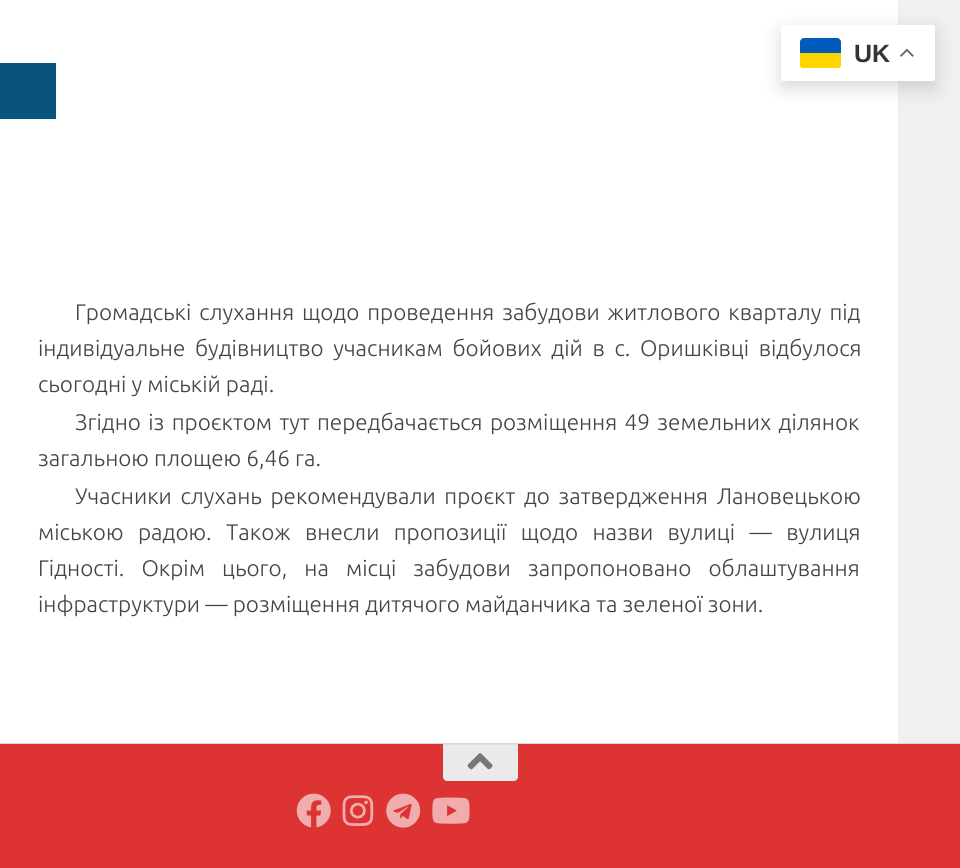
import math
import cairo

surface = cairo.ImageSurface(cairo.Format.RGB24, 960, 868)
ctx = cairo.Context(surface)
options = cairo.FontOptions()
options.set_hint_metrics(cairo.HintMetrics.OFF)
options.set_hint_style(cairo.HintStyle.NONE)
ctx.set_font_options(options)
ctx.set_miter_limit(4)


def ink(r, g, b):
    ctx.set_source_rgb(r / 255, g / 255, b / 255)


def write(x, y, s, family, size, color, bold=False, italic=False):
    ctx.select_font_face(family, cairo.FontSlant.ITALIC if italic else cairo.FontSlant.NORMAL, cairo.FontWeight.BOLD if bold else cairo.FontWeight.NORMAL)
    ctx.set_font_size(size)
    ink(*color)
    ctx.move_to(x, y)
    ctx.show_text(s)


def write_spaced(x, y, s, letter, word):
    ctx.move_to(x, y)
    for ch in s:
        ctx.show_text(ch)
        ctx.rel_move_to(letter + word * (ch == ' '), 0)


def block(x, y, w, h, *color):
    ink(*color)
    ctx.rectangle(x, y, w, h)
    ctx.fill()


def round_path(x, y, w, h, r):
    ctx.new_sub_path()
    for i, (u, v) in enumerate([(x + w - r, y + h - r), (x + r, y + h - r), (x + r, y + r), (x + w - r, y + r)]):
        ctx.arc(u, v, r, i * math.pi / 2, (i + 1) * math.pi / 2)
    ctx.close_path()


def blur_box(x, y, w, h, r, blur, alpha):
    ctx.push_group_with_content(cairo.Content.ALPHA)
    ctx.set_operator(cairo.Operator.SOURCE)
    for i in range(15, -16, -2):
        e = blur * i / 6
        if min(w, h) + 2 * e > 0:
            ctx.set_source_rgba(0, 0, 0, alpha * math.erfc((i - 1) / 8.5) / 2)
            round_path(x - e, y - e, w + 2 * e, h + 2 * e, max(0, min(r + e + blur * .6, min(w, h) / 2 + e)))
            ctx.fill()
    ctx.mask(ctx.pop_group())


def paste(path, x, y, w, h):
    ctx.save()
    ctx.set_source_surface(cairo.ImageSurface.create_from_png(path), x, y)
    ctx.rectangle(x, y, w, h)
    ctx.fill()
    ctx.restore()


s1 = dict(family="Liberation Sans", size=25, color=(51, 51, 51), bold=True)
s2 = dict(family="Ubuntu Light", size=22.5, color=(68, 68, 68))

ink(234, 234, 234)
ctx.paint()
ink(0, 0, 0)
blur_box(0, -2, 960, 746, 0, 0.5, 0.1)
block(0, 0, 898, 743, 255, 255, 255)
block(898, 0, 62, 743, 240, 240, 240)
ink(0, 0, 0)
blur_box(781, 31, 154, 57, 2.5, 9.5, 0.15)
ink(255, 255, 255)
round_path(781, 25, 154, 56, 2.5)
ctx.fill()
ctx.save()
round_path(800, 38, 41, 31, 4)
ctx.clip()
ink(255, 213, 0)
ctx.new_path()
ctx.move_to(804, 38)
ctx.line_to(837, 38)
ctx.curve_to(839, 38, 841, 40, 841, 42)
ctx.line_to(841, 68)
ctx.line_to(800, 68)
ctx.line_to(800, 42)
ctx.curve_to(800, 40, 802, 38, 804, 38)
ctx.close_path()
ctx.fill()
ctx.restore()
ink(0, 91, 187)
ctx.new_path()
ctx.move_to(804, 38)
ctx.line_to(837, 38)
ctx.curve_to(839, 38, 841, 40, 841, 42)
ctx.line_to(841, 53)
ctx.line_to(800, 53)
ctx.line_to(800, 42)
ctx.curve_to(800, 40, 802, 38, 804, 38)
ctx.close_path()
ctx.fill()
write(854, 62, "UK", **s1)
paste("pic1.png", 900, 48, 14, 9)
block(0, 63, 56, 56, 9, 84, 124)
ctx.select_font_face("Ubuntu Light")
ctx.set_font_size(22.5)
ink(68, 68, 68)
write_spaced(75, 320, "Громадські слухання щодо проведення забудови житлового кварталу під", 0, 2.75)
write_spaced(38, 356, "індивідуальне будівництво учасникам бойових дій в с. Оришківці відбулося", 0, 4.5)
write(38, 392, "сьогодні у міській раді.", **s2)
write_spaced(75, 430, "Згідно із проєктом тут передбачається розміщення 49 земельних ділянок", 0, 2.25)
write(38, 466, "загальною площею 6,46 га.", **s2)
write_spaced(75, 504, "Учасники слухань рекомендували проєкт до затвердження Лановецькою", 0, 3.5)
write_spaced(38, 540, "міською радою. Також внесли пропозиції щодо назви вулиці — вулиця", 0, 9.25)
write_spaced(38, 576, "Гідності. Окрім цього, на місці забудови запропоновано облаштування", 0, 12)
write(38, 612, "інфраструктури — розміщення дитячого майданчика та зеленої зони.", **s2)
block(0, 744, 960, 124, 221, 51, 51)
ink(234, 234, 234)
ctx.new_path()
ctx.move_to(443, 744)
ctx.line_to(518, 744)
ctx.line_to(518, 777)
ctx.curve_to(518, 779, 516, 781, 514, 781)
ctx.line_to(447, 781)
ctx.curve_to(445, 781, 443, 779, 443, 777)
ctx.close_path()
ctx.fill()
block(443, 744, 75, 1, 222, 222, 222)
paste("pic2.png", 467, 753, 26, 17)
paste("pic3.png", 296, 793, 35, 35)
paste("pic4.png", 342, 795, 32, 31)
paste("pic5.png", 386, 793, 35, 35)
paste("pic6.png", 432, 797, 38, 27)
surface.write_to_png("screenshot.png")
